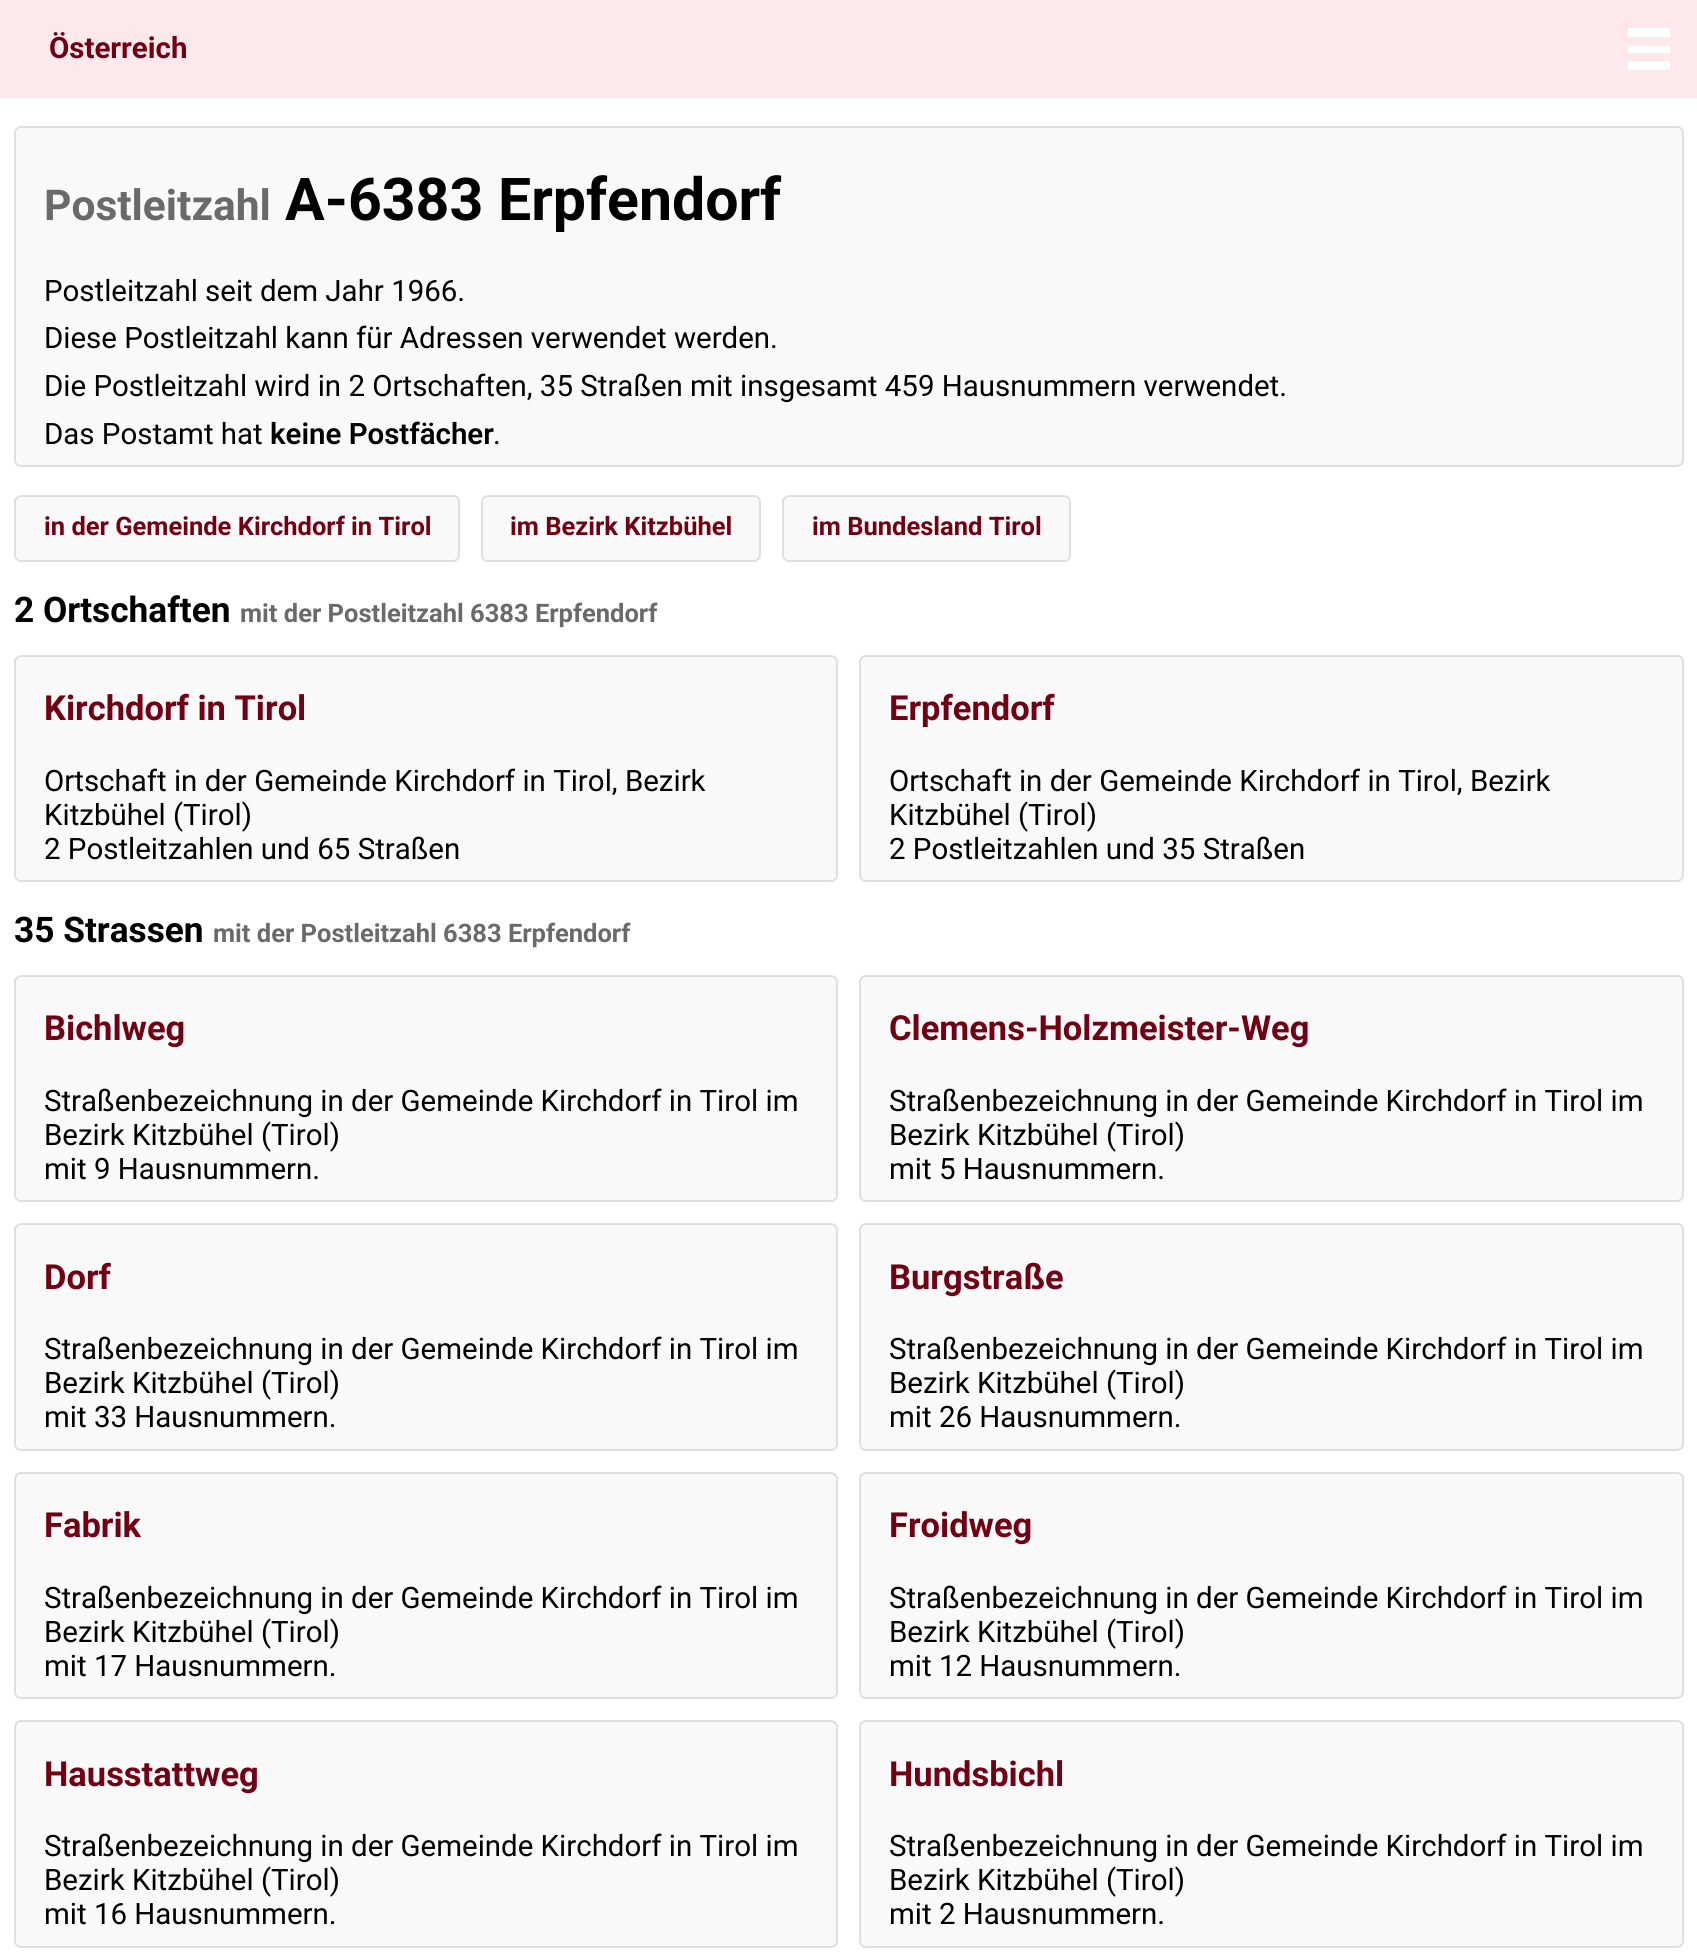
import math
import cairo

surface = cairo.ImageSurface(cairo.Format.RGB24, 1697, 1953)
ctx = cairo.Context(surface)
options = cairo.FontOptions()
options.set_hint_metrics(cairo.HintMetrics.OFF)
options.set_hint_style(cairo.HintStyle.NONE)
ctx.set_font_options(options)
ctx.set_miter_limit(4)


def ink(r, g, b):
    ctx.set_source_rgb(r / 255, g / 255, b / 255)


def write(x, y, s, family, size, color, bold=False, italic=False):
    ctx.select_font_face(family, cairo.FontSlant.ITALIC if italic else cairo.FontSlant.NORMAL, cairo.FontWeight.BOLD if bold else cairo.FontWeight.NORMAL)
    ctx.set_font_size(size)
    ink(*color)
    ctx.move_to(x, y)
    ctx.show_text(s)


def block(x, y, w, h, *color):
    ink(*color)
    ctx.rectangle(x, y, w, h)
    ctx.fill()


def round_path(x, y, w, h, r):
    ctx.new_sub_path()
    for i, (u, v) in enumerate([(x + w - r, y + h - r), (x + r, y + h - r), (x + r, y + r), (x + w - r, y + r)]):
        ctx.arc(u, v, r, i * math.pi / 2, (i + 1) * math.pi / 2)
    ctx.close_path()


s1 = dict(family="Roboto", size=29.45, color=(113, 0, 20), bold=True)
s2 = dict(family="Roboto", size=42.5, color=(106, 106, 106), bold=True)
s3 = dict(family="Roboto", size=59, color=(0, 0, 0), bold=True)
s4 = dict(family="Roboto", size=29.45, color=(0, 0, 0))
s5 = dict(family="Roboto SemiBold", size=29.45, color=(0, 0, 0))
s6 = dict(family="Roboto", size=25.5, color=(113, 0, 20), bold=True)
s7 = dict(family="Roboto", size=35.25, color=(0, 0, 0), bold=True)
s8 = dict(family="Roboto", size=25.5, color=(106, 106, 106), bold=True)
s9 = dict(family="Roboto", size=34.5, color=(113, 0, 20), bold=True)

ink(255, 255, 255)
ctx.paint()
block(0, 0, 1697, 98, 253, 233, 236)
write(49, 58, "Österreich", **s1)
block(1628, 28, 42, 9, 255, 255, 255)
block(1628, 46, 42, 7, 255, 255, 255)
block(1628, 61, 42, 9, 255, 255, 255)
ink(249, 249, 249)
round_path(15, 127, 1668, 339, 6)
ctx.fill_preserve()
ink(223, 223, 223)
ctx.stroke()
write(44, 220, "Postleitzahl", **s2)
write(285, 220, "A-6383 Erpfendorf", **s3)
write(44, 301, "Postleitzahl seit dem Jahr 1966.", **s4)
write(44, 348, "Diese Postleitzahl kann für Adressen verwendet werden.", **s4)
write(44, 396, "Die Postleitzahl wird in 2 Ortschaften, 35 Straßen mit insgesamt 459 Hausnummern verwendet.", **s4)
write(44, 444, "Das Postamt hat", **s4)
write(270, 444, "keine Postfächer", **s5)
write(493, 444, ".", **s4)
ink(249, 249, 249)
round_path(15, 496, 444, 65, 6)
ctx.fill_preserve()
ink(223, 223, 223)
ctx.stroke()
write(44, 535, "in der Gemeinde Kirchdorf in Tirol", **s6)
ink(249, 249, 249)
round_path(482, 496, 278, 65, 6)
ctx.fill_preserve()
ink(223, 223, 223)
ctx.stroke()
write(510, 535, "im Bezirk Kitzbühel", **s6)
ink(249, 249, 249)
round_path(783, 496, 287, 65, 6)
ctx.fill_preserve()
ink(223, 223, 223)
ctx.stroke()
write(812, 535, "im Bundesland Tirol", **s6)
write(14, 622, "2 Ortschaften", **s7)
write(240, 622, "mit der Postleitzahl 6383 Erpfendorf", **s8)
ink(249, 249, 249)
round_path(15, 656, 822, 225, 6)
ctx.fill_preserve()
ink(223, 223, 223)
ctx.stroke()
write(44, 720, "Kirchdorf in Tirol", **s9)
write(44, 791, "Ortschaft in der Gemeinde Kirchdorf in Tirol, Bezirk", **s4)
write(44, 825, "Kitzbühel (Tirol)", **s4)
write(44, 859, "2 Postleitzahlen und 65 Straßen", **s4)
ink(249, 249, 249)
round_path(860, 656, 823, 225, 6)
ctx.fill_preserve()
ink(223, 223, 223)
ctx.stroke()
write(889, 720, "Erpfendorf", **s9)
write(889, 791, "Ortschaft in der Gemeinde Kirchdorf in Tirol, Bezirk", **s4)
write(889, 825, "Kitzbühel (Tirol)", **s4)
write(889, 859, "2 Postleitzahlen und 35 Straßen", **s4)
write(14, 942, "35 Strassen", **s7)
write(213, 942, "mit der Postleitzahl 6383 Erpfendorf", **s8)
ink(249, 249, 249)
round_path(15, 976, 822, 225, 6)
ctx.fill_preserve()
ink(223, 223, 223)
ctx.stroke()
write(44, 1040, "Bichlweg", **s9)
write(44, 1111, "Straßenbezeichnung in der Gemeinde Kirchdorf in Tirol im", **s4)
write(44, 1145, "Bezirk Kitzbühel (Tirol)", **s4)
write(44, 1179, "mit 9 Hausnummern.", **s4)
ink(249, 249, 249)
round_path(860, 976, 823, 225, 6)
ctx.fill_preserve()
ink(223, 223, 223)
ctx.stroke()
write(889, 1040, "Clemens-Holzmeister-Weg", **s9)
write(889, 1111, "Straßenbezeichnung in der Gemeinde Kirchdorf in Tirol im", **s4)
write(889, 1145, "Bezirk Kitzbühel (Tirol)", **s4)
write(889, 1179, "mit 5 Hausnummern.", **s4)
ink(249, 249, 249)
round_path(15, 1224, 822, 226, 6)
ctx.fill_preserve()
ink(223, 223, 223)
ctx.stroke()
write(44, 1289, "Dorf", **s9)
write(44, 1359, "Straßenbezeichnung in der Gemeinde Kirchdorf in Tirol im", **s4)
write(44, 1393, "Bezirk Kitzbühel (Tirol)", **s4)
write(44, 1427, "mit 33 Hausnummern.", **s4)
ink(249, 249, 249)
round_path(860, 1224, 823, 226, 6)
ctx.fill_preserve()
ink(223, 223, 223)
ctx.stroke()
write(889, 1289, "Burgstraße", **s9)
write(889, 1359, "Straßenbezeichnung in der Gemeinde Kirchdorf in Tirol im", **s4)
write(889, 1393, "Bezirk Kitzbühel (Tirol)", **s4)
write(889, 1427, "mit 26 Hausnummern.", **s4)
ink(249, 249, 249)
round_path(15, 1473, 822, 225, 6)
ctx.fill_preserve()
ink(223, 223, 223)
ctx.stroke()
write(44, 1537, "Fabrik", **s9)
write(44, 1608, "Straßenbezeichnung in der Gemeinde Kirchdorf in Tirol im", **s4)
write(44, 1642, "Bezirk Kitzbühel (Tirol)", **s4)
write(44, 1676, "mit 17 Hausnummern.", **s4)
ink(249, 249, 249)
round_path(860, 1473, 823, 225, 6)
ctx.fill_preserve()
ink(223, 223, 223)
ctx.stroke()
write(889, 1537, "Froidweg", **s9)
write(889, 1608, "Straßenbezeichnung in der Gemeinde Kirchdorf in Tirol im", **s4)
write(889, 1642, "Bezirk Kitzbühel (Tirol)", **s4)
write(889, 1676, "mit 12 Hausnummern.", **s4)
ink(249, 249, 249)
round_path(15, 1721, 822, 226, 6)
ctx.fill_preserve()
ink(223, 223, 223)
ctx.stroke()
write(44, 1786, "Hausstattweg", **s9)
write(44, 1856, "Straßenbezeichnung in der Gemeinde Kirchdorf in Tirol im", **s4)
write(44, 1890, "Bezirk Kitzbühel (Tirol)", **s4)
write(44, 1924, "mit 16 Hausnummern.", **s4)
ink(249, 249, 249)
round_path(860, 1721, 823, 226, 6)
ctx.fill_preserve()
ink(223, 223, 223)
ctx.stroke()
write(889, 1786, "Hundsbichl", **s9)
write(889, 1856, "Straßenbezeichnung in der Gemeinde Kirchdorf in Tirol im", **s4)
write(889, 1890, "Bezirk Kitzbühel (Tirol)", **s4)
write(889, 1924, "mit 2 Hausnummern.", **s4)
surface.write_to_png("screenshot.png")
